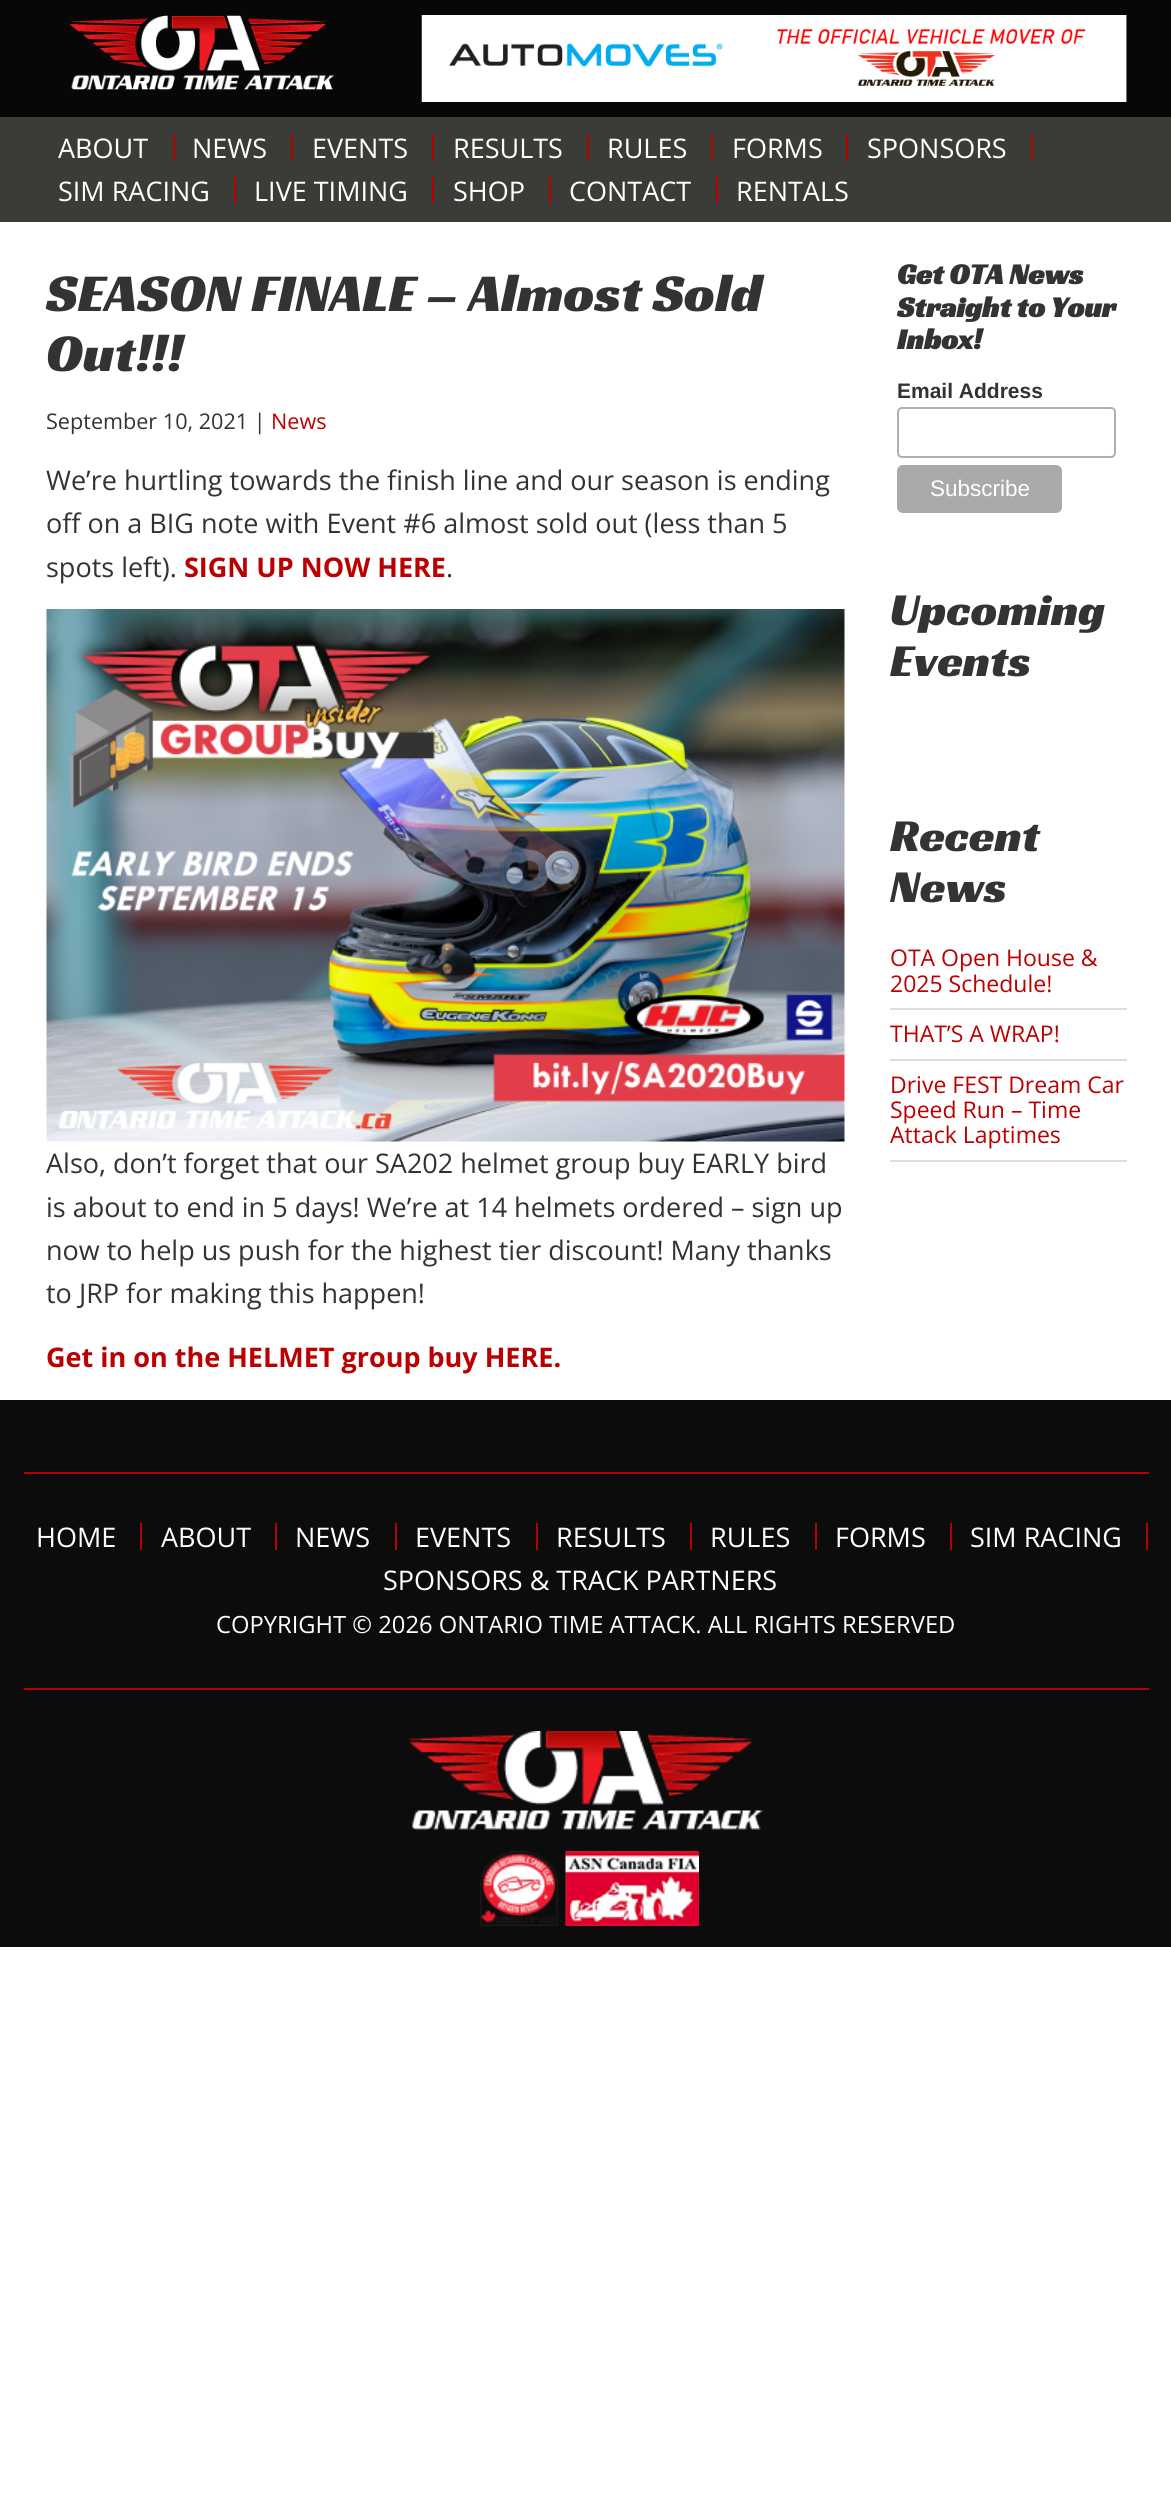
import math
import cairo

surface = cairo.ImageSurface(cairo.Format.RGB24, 1171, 2519)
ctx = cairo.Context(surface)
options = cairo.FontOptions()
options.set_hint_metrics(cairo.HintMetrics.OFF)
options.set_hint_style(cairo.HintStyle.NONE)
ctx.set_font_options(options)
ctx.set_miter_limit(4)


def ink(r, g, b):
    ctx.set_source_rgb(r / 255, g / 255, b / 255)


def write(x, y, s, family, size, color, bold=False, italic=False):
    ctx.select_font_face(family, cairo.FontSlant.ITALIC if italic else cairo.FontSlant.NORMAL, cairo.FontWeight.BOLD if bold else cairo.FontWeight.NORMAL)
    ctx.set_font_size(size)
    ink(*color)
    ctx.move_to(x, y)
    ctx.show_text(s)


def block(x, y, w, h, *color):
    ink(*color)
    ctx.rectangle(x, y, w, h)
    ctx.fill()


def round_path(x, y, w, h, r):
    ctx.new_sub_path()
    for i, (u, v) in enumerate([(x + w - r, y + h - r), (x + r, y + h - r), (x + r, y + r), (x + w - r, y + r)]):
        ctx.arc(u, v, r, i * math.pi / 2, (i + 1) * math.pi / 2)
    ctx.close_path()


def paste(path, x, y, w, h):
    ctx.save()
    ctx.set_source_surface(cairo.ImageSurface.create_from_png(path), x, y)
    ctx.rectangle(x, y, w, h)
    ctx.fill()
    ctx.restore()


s1 = dict(family="Open Sans", size=27, color=(255, 255, 255))
s2 = dict(family="Racing Sans One", size=54, color=(51, 51, 51))
s3 = dict(family="Open Sans", size=21.6, color=(51, 51, 51))
s4 = dict(family="Open Sans", size=21.6, color=(186, 0, 0))
s5 = dict(family="Open Sans", size=27, color=(51, 51, 51))
s6 = dict(family="Open Sans", size=27, color=(186, 0, 0), bold=True)
s7 = dict(family="Racing Sans One", size=29.5, color=(51, 51, 51), bold=True)
s8 = dict(family="Liberation Sans", size=21, color=(51, 51, 51), bold=True)
s9 = dict(family="Liberation Sans", size=22.5, color=(255, 255, 255))
s10 = dict(family="Racing Sans One", size=46.5, color=(51, 51, 51))
s11 = dict(family="Open Sans", size=23, color=(186, 0, 0))
s12 = dict(family="Open Sans", size=23.75, color=(255, 255, 255))

ink(255, 255, 255)
ctx.paint()
block(0, 0, 1171, 117, 7, 7, 7)
paste("pic1.png", 69, 15, 266, 75)
paste("pic2.png", 421, 15, 705, 87)
block(1126, 15, 1, 87, 116, 116, 116)
block(0, 117, 1171, 105, 59, 59, 56)
block(173, 134, 2, 27, 186, 0, 0)
write(58, 158, "ABOUT", **s1)
block(291, 134, 2, 27, 186, 0, 0)
write(192, 158, "NEWS", **s1)
block(432, 134, 2, 27, 186, 0, 0)
write(312, 158, "EVENTS", **s1)
block(587, 134, 2, 27, 186, 0, 0)
write(453, 158, "RESULTS", **s1)
block(711, 134, 2, 27, 186, 0, 0)
write(607, 158, "RULES", **s1)
block(846, 134, 2, 27, 186, 0, 0)
write(732, 158, "FORMS", **s1)
block(1031, 134, 2, 27, 186, 0, 0)
write(867, 158, "SPONSORS", **s1)
block(234, 177, 2, 27, 186, 0, 0)
write(58, 201, "SIM RACING", **s1)
block(432, 177, 2, 27, 186, 0, 0)
write(254, 201, "LIVE TIMING", **s1)
block(549, 177, 2, 27, 186, 0, 0)
write(453, 201, "SHOP", **s1)
block(716, 177, 2, 27, 186, 0, 0)
write(569, 201, "CONTACT", **s1)
write(736, 201, "RENTALS", **s1)
write(46, 311, "SEASON FINALE – Almost Sold", **s2)
write(46, 371, "Out!!!", **s2)
write(46, 429, "September 10, 2021 |", **s3)
write(271, 429, "News", **s4)
write(46, 490, "We’re hurtling towards the finish line and our season is ending", **s5)
write(46, 533, "off on a BIG note with Event #6 almost sold out (less than 5", **s5)
write(46, 577, "spots left).", **s5)
write(184, 577, "SIGN UP NOW HERE", **s6)
write(446, 577, ".", **s5)
paste("pic3.png", 46, 609, 799, 533)
write(46, 1173, "Also, don’t forget that our SA202 helmet group buy EARLY bird", **s5)
write(46, 1217, "is about to end in 5 days! We’re at 14 helmets ordered – sign up", **s5)
write(46, 1260, "now to help us push for the highest tier discount! Many thanks", **s5)
write(46, 1303, "to JRP for making this happen!", **s5)
write(46, 1367, "Get in on the HELMET group buy HERE.", **s6)
write(897, 284, "Get OTA News", **s7)
write(897, 317, "Straight to Your", **s7)
write(897, 349, "Inbox!", **s7)
write(897, 398, "Email Address", **s8)
round_path(898, 408, 217, 49, 4)
ink(171, 176, 178)
ctx.stroke()
ink(170, 170, 170)
round_path(897, 465, 165, 48, 6)
ctx.fill()
write(930, 496, "Subscribe", **s9)
write(890, 625, "Upcoming", **s10)
write(890, 676, "Events", **s10)
write(890, 851, "Recent", **s10)
write(890, 902, "News", **s10)
block(890, 1008, 237, 2, 221, 221, 221)
write(890, 966, "OTA Open House &", **s11)
write(890, 992, "2025 Schedule!", **s11)
block(890, 1059, 237, 2, 221, 221, 221)
write(890, 1042, "THAT’S A WRAP!", **s11)
block(890, 1160, 237, 2, 221, 221, 221)
write(890, 1093, "Drive FEST Dream Car", **s11)
write(890, 1118, "Speed Run – Time", **s11)
write(890, 1143, "Attack Laptimes", **s11)
block(0, 1400, 1171, 547, 12, 12, 12)
block(24, 1472, 1125, 2, 186, 0, 0)
block(140, 1523, 2, 27, 186, 0, 0)
write(36, 1547, "HOME", **s1)
block(275, 1523, 2, 27, 186, 0, 0)
write(161, 1547, "ABOUT", **s1)
block(395, 1523, 2, 27, 186, 0, 0)
write(295, 1547, "NEWS", **s1)
block(536, 1523, 2, 27, 186, 0, 0)
write(415, 1547, "EVENTS", **s1)
block(690, 1523, 2, 27, 186, 0, 0)
write(556, 1547, "RESULTS", **s1)
block(815, 1523, 2, 27, 186, 0, 0)
write(710, 1547, "RULES", **s1)
block(950, 1523, 2, 27, 186, 0, 0)
write(835, 1547, "FORMS", **s1)
block(1146, 1523, 2, 27, 186, 0, 0)
write(970, 1547, "SIM RACING", **s1)
write(383, 1590, "SPONSORS & TRACK PARTNERS", **s1)
write(216, 1633, "COPYRIGHT © 2026 ONTARIO TIME ATTACK. ALL RIGHTS RESERVED", **s12)
block(24, 1688, 1125, 2, 186, 0, 0)
paste("pic4.png", 409, 1731, 355, 99)
paste("pic5.png", 480, 1851, 78, 75)
paste("pic6.png", 565, 1851, 134, 75)
surface.write_to_png("screenshot.png")
